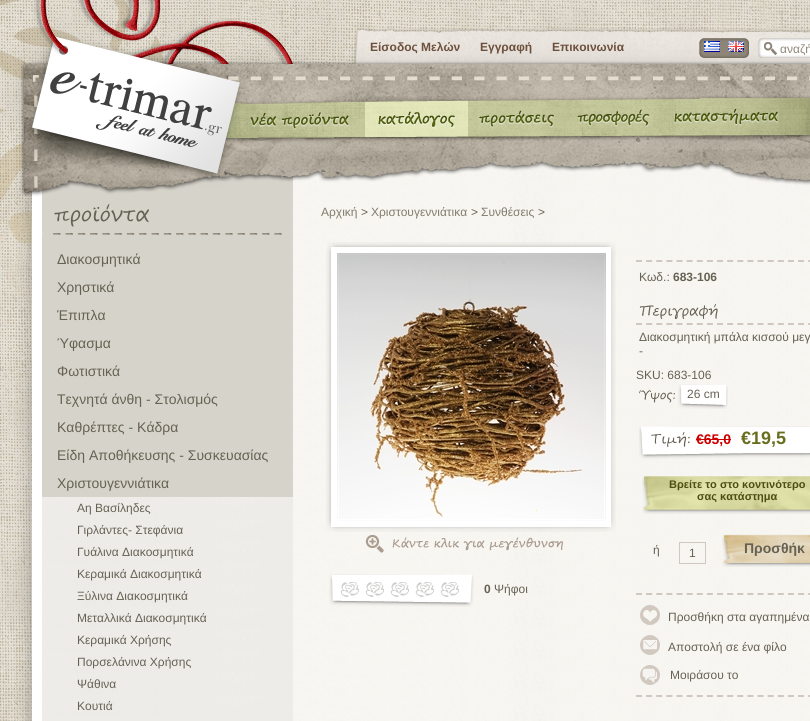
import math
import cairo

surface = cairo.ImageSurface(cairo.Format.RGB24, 810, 721)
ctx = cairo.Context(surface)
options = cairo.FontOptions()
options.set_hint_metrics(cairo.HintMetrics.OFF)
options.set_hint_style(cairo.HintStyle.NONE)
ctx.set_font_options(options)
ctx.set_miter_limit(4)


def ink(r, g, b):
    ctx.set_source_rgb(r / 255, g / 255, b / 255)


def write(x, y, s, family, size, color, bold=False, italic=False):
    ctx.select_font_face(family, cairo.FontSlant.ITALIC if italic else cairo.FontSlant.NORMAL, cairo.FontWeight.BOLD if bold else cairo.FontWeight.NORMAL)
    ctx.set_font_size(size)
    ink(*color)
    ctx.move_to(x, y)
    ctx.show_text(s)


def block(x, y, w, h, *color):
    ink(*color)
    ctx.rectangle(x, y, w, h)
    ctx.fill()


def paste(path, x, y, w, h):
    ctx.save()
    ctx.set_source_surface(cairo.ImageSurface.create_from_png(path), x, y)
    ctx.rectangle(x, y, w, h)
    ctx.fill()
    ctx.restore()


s1 = dict(family="Liberation Sans", size=12, color=(109, 80, 60), bold=True)
s2 = dict(family="Liberation Sans", size=12, color=(143, 135, 121))
s3 = dict(family="Liberation Sans", size=14, color=(102, 97, 83))
s4 = dict(family="Liberation Sans", size=12, color=(102, 97, 83))
s5 = dict(family="Liberation Sans", size=12, color=(131, 123, 109))
s6 = dict(family="Liberation Sans", size=12, color=(102, 97, 83), bold=True)
s7 = dict(family="Liberation Sans", size=14, color=(204, 0, 0), bold=True)
s8 = dict(family="Liberation Sans", size=18, color=(105, 110, 31), bold=True)
s9 = dict(family="Liberation Sans", size=11, color=(75, 79, 16), bold=True)
s10 = dict(family="Liberation Sans", size=14, color=(102, 97, 83), bold=True)

ink(255, 255, 255)
ctx.paint()
paste("pic1.png", 0, 0, 810, 721)
paste("pic2.png", 0, 0, 164, 244)
paste("pic13.png", 32, 161, 778, 560)
block(42, 171, 251, 326, 214, 211, 202)
paste("pic15.png", 54, 204, 95, 23)
paste("pic3.png", 15, 0, 795, 205)
write(370, 51, "Είσοδος Μελών", **s1)
write(480, 51, "Εγγραφή", **s1)
write(552, 51, "Επικοινωνία", **s1)
paste("pic4.png", 704, 41, 16, 11)
paste("pic5.png", 728, 41, 16, 11)
paste("pic6.png", 764, 42, 13, 13)
write(780, 53, "αναζή", **s2)
paste("pic7.png", 249, 112, 101, 18)
paste("pic8.png", 365, 100, 103, 38)
paste("pic9.png", 478, 108, 82, 22)
paste("pic10.png", 577, 105, 73, 24)
paste("pic11.png", 670, 105, 109, 23)
paste("pic12.png", 15, 205, 17, 516)
paste("pic14.png", 42, 233, 240, 2)
write(57, 264, "Διακοσμητικά", **s3)
write(57, 292, "Χρηστικά", **s3)
write(57, 320, "Έπιπλα", **s3)
write(57, 348, "Ύφασμα", **s3)
write(57, 376, "Φωτιστικά", **s3)
write(57, 404, "Τεχνητά άνθη - Στολισμός", **s3)
write(57, 432, "Καθρέπτες - Κάδρα", **s3)
write(57, 460, "Είδη Αποθήκευσης - Συσκευασίας", **s3)
write(57, 488, "Χριστουγεννιάτικα", **s3)
paste("pic16.png", 42, 497, 251, 22)
write(77, 512, "Αη Βασίληδες", **s4)
paste("pic16.png", 42, 519, 251, 22)
write(77, 534, "Γιρλάντες- Στεφάνια", **s4)
paste("pic16.png", 42, 541, 251, 22)
write(77, 556, "Γυάλινα Διακοσμητικά", **s4)
paste("pic16.png", 42, 563, 251, 22)
write(77, 578, "Κεραμικά Διακοσμητικά", **s4)
paste("pic16.png", 42, 585, 251, 22)
write(77, 600, "Ξύλινα Διακοσμητικά", **s4)
paste("pic16.png", 42, 607, 251, 22)
write(77, 622, "Μεταλλικά Διακοσμητικά", **s4)
paste("pic16.png", 42, 629, 251, 22)
write(77, 644, "Κεραμικά Χρήσης", **s4)
paste("pic16.png", 42, 651, 251, 22)
write(77, 666, "Πορσελάνινα Χρήσης", **s4)
paste("pic16.png", 42, 673, 251, 22)
write(77, 688, "Ψάθινα", **s4)
paste("pic16.png", 42, 695, 251, 22)
write(77, 710, "Κουτιά", **s4)
block(42, 717, 251, 4, 237, 236, 233)
write(321, 216, "Αρχική", **s5)
write(361, 216, ">", **s4)
write(371, 216, "Χριστουγεννιάτικα", **s5)
write(471, 216, ">", **s4)
write(481, 216, "Συνθέσεις", **s5)
write(538, 216, ">", **s4)
paste("pic17.png", 326, 242, 290, 290)
paste("pic18.png", 337, 253, 269, 268)
paste("pic19.png", 365, 534, 198, 19)
paste("pic20.png", 329, 574, 145, 33)
paste("pic21.png", 340, 582, 19, 15)
paste("pic21.png", 365, 582, 19, 15)
paste("pic21.png", 390, 582, 19, 15)
paste("pic21.png", 415, 582, 19, 15)
paste("pic21.png", 440, 582, 19, 15)
write(484, 593, "0", **s6)
write(494, 593, "Ψήφοι", **s4)
ctx.new_path()
ctx.move_to(636, 261)
ctx.line_to(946, 261)
ink(208, 200, 192)
ctx.set_dash([6, 4.13])
ctx.stroke()
write(639, 281, "Κωδ.:", **s4)
write(673, 281, "683-106", **s6)
ctx.new_path()
ctx.move_to(636, 324)
ctx.line_to(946, 324)
ink(208, 200, 192)
ctx.stroke()
paste("pic22.png", 639, 304, 79, 15)
write(639, 341, "Διακοσμητική μπάλα κισσού μεγ", **s4)
write(639, 355, "-", **s4)
write(636, 379, "SKU: 683-106", **s4)
paste("pic23.png", 639, 390, 36, 13)
paste("pic24.png", 678, 384, 50, 25)
write(687, 398, "26 cm", **s4)
paste("pic25.png", 639, 426, 171, 33)
paste("pic26.png", 651, 432, 39, 15)
write(696, 444, "€65,0", **s7)
block(696, 439, 35, 1, 204, 0, 0)
write(741, 444, "€19,5", **s8)
paste("pic27.png", 642, 476, 168, 38)
write(669, 488, "Βρείτε το στο κοντινότερο", **s9)
write(697, 500, "σας κατάστημα", **s9)
write(653, 554, "ή", **s4)
ctx.rectangle(679.5, 542.5, 26, 21)
ink(208, 200, 192)
ctx.set_line_width(1)
ctx.set_dash([])
ctx.stroke()
write(689, 557, "1", **s4)
paste("pic28.png", 722, 534, 88, 33)
write(744, 553, "Προσθήκ", **s10)
ctx.new_path()
ctx.move_to(636, 594)
ctx.line_to(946, 594)
ink(208, 200, 192)
ctx.set_line_width(2)
ctx.set_dash([6, 4.13])
ctx.stroke()
paste("pic29.png", 640, 605, 20, 20)
write(668, 621, "Προσθήκη στα αγαπημένα", **s4)
paste("pic30.png", 640, 635, 20, 20)
write(668, 651, "Αποστολή σε ένα φίλο", **s4)
paste("pic31.png", 640, 665, 20, 20)
write(670, 679, "Μοιράσου το", **s4)
ctx.new_path()
ctx.move_to(636, 696)
ctx.line_to(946, 696)
ink(208, 200, 192)
ctx.stroke()
surface.write_to_png("screenshot.png")
